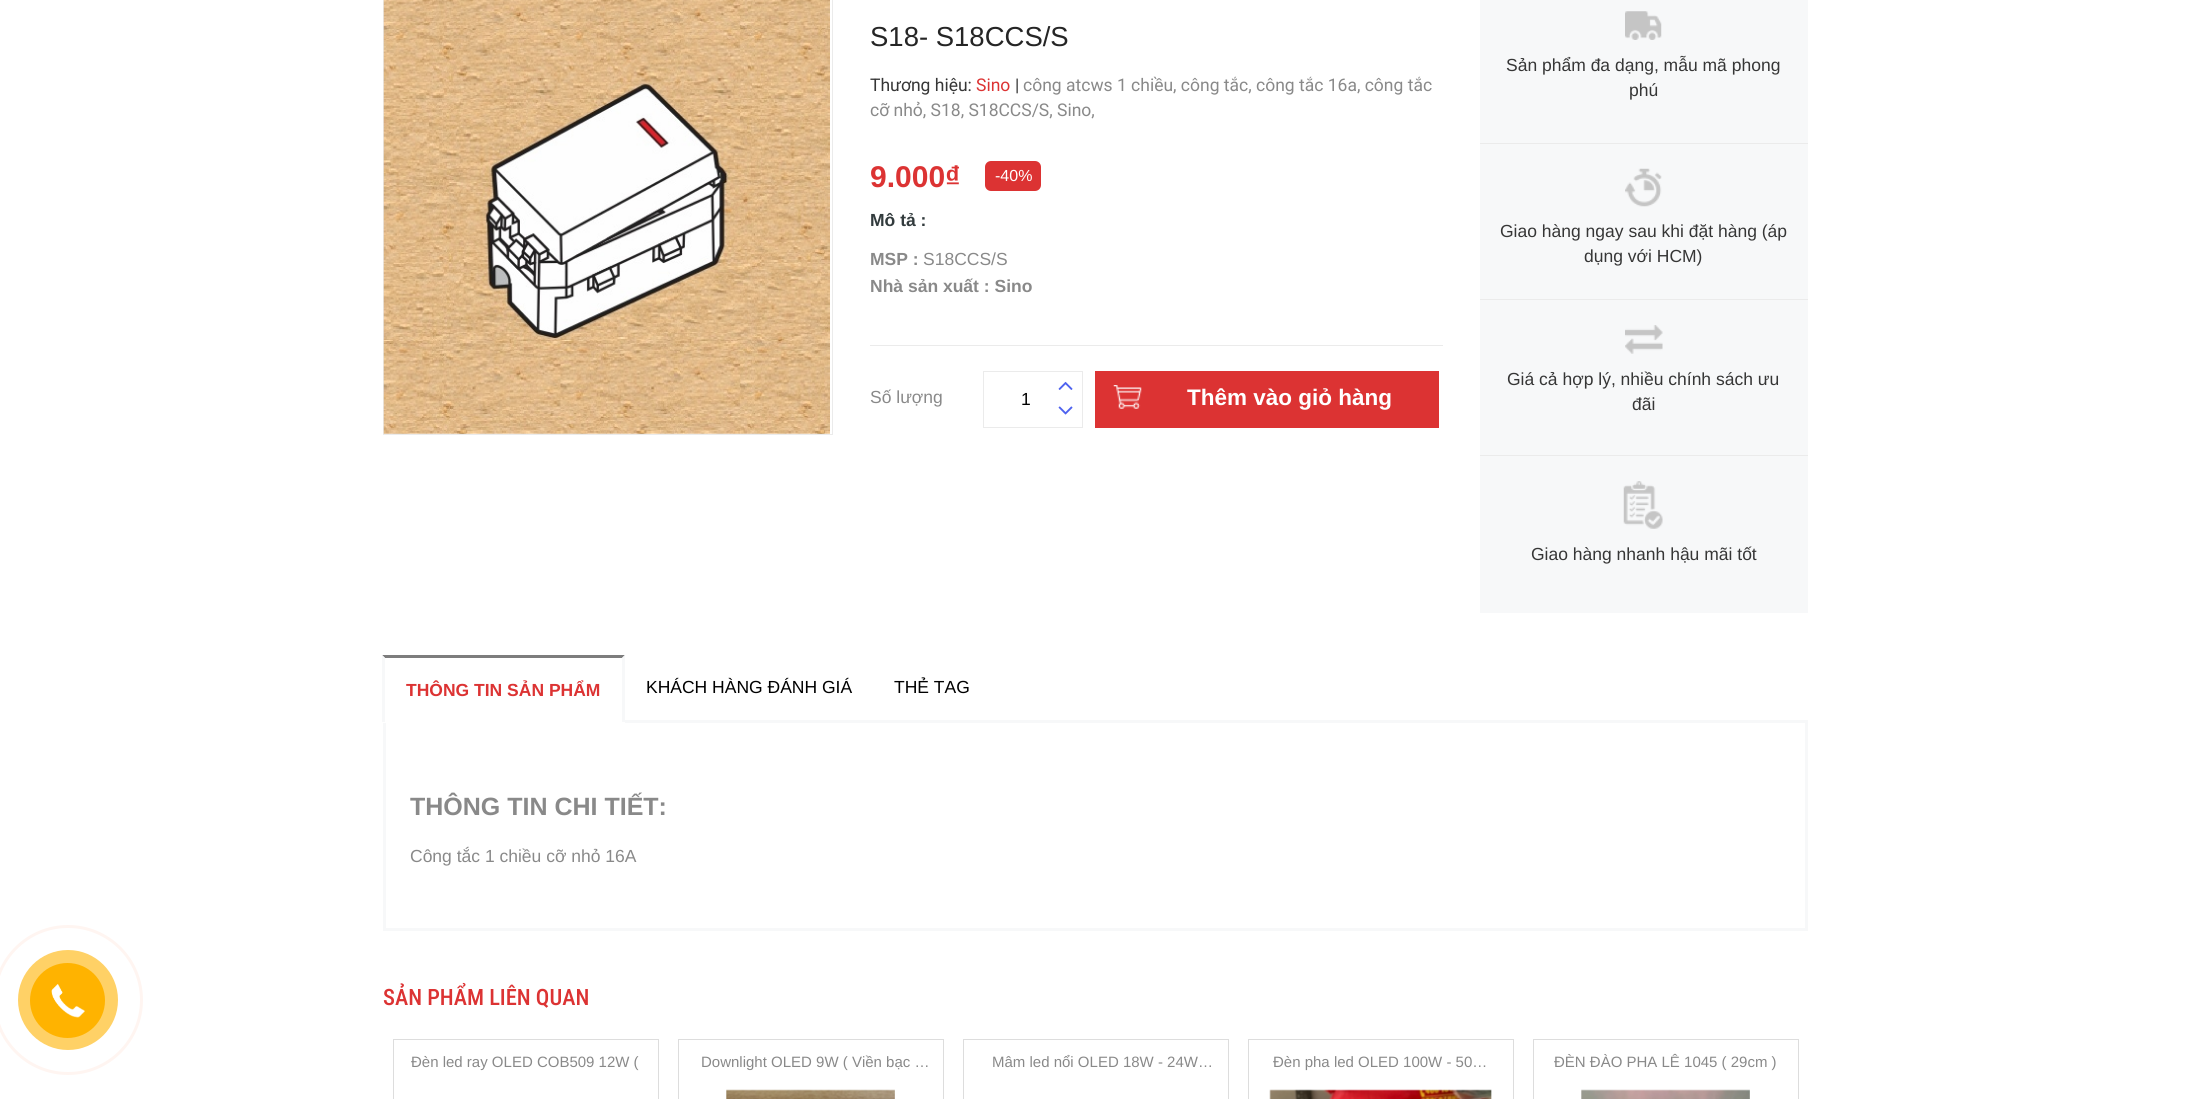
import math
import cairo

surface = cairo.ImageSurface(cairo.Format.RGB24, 2190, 1099)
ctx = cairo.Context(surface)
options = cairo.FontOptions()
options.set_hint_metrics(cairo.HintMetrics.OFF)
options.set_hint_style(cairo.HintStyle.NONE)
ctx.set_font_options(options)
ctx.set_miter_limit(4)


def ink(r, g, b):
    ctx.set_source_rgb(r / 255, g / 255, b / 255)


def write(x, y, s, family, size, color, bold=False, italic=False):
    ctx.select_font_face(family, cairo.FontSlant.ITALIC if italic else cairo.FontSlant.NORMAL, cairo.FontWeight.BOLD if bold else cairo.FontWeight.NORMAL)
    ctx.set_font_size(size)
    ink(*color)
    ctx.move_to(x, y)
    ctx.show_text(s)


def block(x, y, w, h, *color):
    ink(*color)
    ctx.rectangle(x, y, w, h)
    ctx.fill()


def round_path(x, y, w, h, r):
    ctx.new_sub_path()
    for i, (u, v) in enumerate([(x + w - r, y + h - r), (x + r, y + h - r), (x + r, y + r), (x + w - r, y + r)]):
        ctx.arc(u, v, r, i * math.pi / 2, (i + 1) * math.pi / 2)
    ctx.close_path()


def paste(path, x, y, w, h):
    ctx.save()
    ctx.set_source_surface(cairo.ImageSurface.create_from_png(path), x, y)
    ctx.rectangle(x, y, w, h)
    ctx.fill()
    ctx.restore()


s1 = dict(family="Liberation Sans", size=27.5, color=(37, 37, 37))
s2 = dict(family="Roboto", size=17.5, color=(54, 54, 54))
s3 = dict(family="Roboto", size=17.5, color=(220, 51, 51))
s4 = dict(family="Roboto", size=17.5, color=(137, 137, 137))
s5 = dict(family="Liberation Sans", size=30, color=(220, 51, 51), bold=True)
s6 = dict(family="Liberation Sans", size=16, color=(255, 255, 255))
s7 = dict(family="Liberation Sans", size=17.5, color=(50, 59, 61), bold=True)
s8 = dict(family="Liberation Sans", size=17.5, color=(137, 137, 137), bold=True)
s9 = dict(family="Liberation Sans", size=17.5, color=(137, 137, 137))
s10 = dict(family="Liberation Sans", size=17.5, color=(0, 0, 0))
s11 = dict(family="Liberation Sans", size=22.5, color=(255, 255, 255), bold=True)
s12 = dict(family="Liberation Sans", size=17.5, color=(54, 54, 54))
s13 = dict(family="Liberation Sans", size=17.5, color=(220, 51, 51), bold=True)
s14 = dict(family="Liberation Sans", size=25, color=(137, 137, 137), bold=True)
s15 = dict(family="Roboto Condensed Medium", size=22.5, color=(220, 51, 51))
s16 = dict(family="Liberation Sans", size=15, color=(137, 137, 137))

ink(255, 255, 255)
ctx.paint()
ink(255, 179, 0)
ctx.arc(67.5, 1000.5, 37.5, 0, 2 * math.pi)
ctx.fill()
ctx.set_source_rgba(1, 0.702, 0, 0.6)
ctx.arc(68, 1000, 50, 0, 2 * math.pi)
ctx.fill()
ctx.arc(68, 1000, 73.5, 0, 2 * math.pi)
ink(255, 245, 241)
ctx.set_line_width(3)
ctx.stroke()
paste("pic1.png", 51, 984, 34, 34)
ctx.rectangle(383.5, -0.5, 449, 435)
ink(235, 235, 235)
ctx.set_line_width(1)
ctx.stroke()
paste("pic2.png", 383, 0, 447, 434)
write(870, 46, "S18- S18CCS/S", **s1)
write(870, 91, "Thương hiệu:", **s2)
write(976, 91, "Sino", **s3)
write(1015, 91, "|", **s2)
write(1023, 91, "công atcws 1 chiều, công tắc, công tắc 16a, công tắc", **s4)
write(870, 116, "cỡ nhỏ, S18, S18CCS/S, Sino,", **s4)
write(870, 187, "9.000₫", **s5)
round_path(985, 161, 56, 30, 6)
ctx.fill()
write(995, 181, "-40%", **s6)
block(870, 345, 573, 1, 235, 235, 235)
write(870, 226, "Mô tả :", **s7)
write(870, 265, "MSP :", **s8)
write(923, 265, "S18CCS/S", **s9)
write(870, 292, "Nhà sản xuất : Sino", **s8)
write(870, 403, "Số lượng", **s9)
ctx.rectangle(983.5, 371.5, 99, 56)
ink(235, 235, 235)
ctx.stroke()
write(1021, 405, "1", **s10)
paste("pic3.png", 1058, 381, 15, 9)
paste("pic4.png", 1058, 406, 15, 9)
block(1095, 371, 344, 57, 220, 51, 51)
paste("pic5.png", 1113, 385, 29, 24)
write(1187, 405, "Thêm vào giỏ hàng", **s11)
block(1480, 0, 328, 143, 247, 248, 249)
paste("pic6.png", 1625, 11, 37, 29)
write(1506, 71, "Sản phẩm đa dạng, mẫu mã phong", **s12)
write(1629, 96, "phú", **s12)
block(1480, 143, 328, 1, 235, 235, 235)
block(1480, 144, 328, 155, 247, 248, 249)
paste("pic7.png", 1625, 168, 37, 39)
write(1500, 237, "Giao hàng ngay sau khi đặt hàng (áp", **s12)
write(1584, 262, "dụng với HCM)", **s12)
block(1480, 299, 328, 1, 235, 235, 235)
block(1480, 300, 328, 155, 247, 248, 249)
paste("pic8.png", 1625, 325, 38, 29)
write(1507, 385, "Giá cả hợp lý, nhiều chính sách ưu", **s12)
write(1632, 410, "đãi", **s12)
block(1480, 455, 328, 1, 235, 235, 235)
block(1480, 456, 328, 157, 247, 248, 249)
paste("pic9.png", 1623, 481, 40, 48)
write(1531, 560, "Giao hàng nhanh hậu mãi tốt", **s12)
block(625, 720, 1183, 3, 247, 248, 249)
ink(125, 125, 125)
ctx.new_path()
ctx.move_to(382, 655)
ctx.line_to(625, 655)
ctx.line_to(622, 658)
ctx.line_to(385, 658)
ctx.close_path()
ctx.fill()
ink(247, 248, 249)
ctx.new_path()
ctx.move_to(625, 655)
ctx.line_to(625, 722)
ctx.line_to(622, 722)
ctx.line_to(622, 658)
ctx.close_path()
ctx.fill()
ctx.new_path()
ctx.move_to(382, 722)
ctx.line_to(382, 655)
ctx.line_to(385, 658)
ctx.line_to(385, 722)
ctx.close_path()
ctx.fill()
write(406, 696, "THÔNG TIN SẢN PHẨM", **s13)
write(646, 693, "KHÁCH HÀNG ĐÁNH GIÁ", **s10)
write(894, 693, "THẺ TAG", **s10)
block(1805, 723, 3, 207, 247, 248, 249)
block(383, 928, 1425, 3, 247, 248, 249)
block(383, 723, 3, 207, 247, 248, 249)
write(410, 815, "THÔNG TIN CHI TIẾT:", **s14)
write(410, 862, "Công tắc 1 chiều cỡ nhỏ 16A", **s9)
write(383, 1005, "SẢN PHẨM LIÊN QUAN", **s15)
ctx.rectangle(393.5, 1039.5, 265, 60)
ink(221, 221, 221)
ctx.stroke()
write(411, 1067, "Đèn led ray OLED COB509 12W (", **s16)
ctx.rectangle(678.5, 1039.5, 265, 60)
ink(221, 221, 221)
ctx.stroke()
write(701, 1067, "Downlight OLED 9W ( Viền bạc …", **s16)
paste("pic10.png", 726, 1089, 169, 10)
ctx.rectangle(963.5, 1039.5, 265, 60)
ink(221, 221, 221)
ctx.stroke()
write(992, 1067, "Mâm led nổi OLED 18W - 24W…", **s16)
ctx.rectangle(1248.5, 1039.5, 265, 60)
ink(221, 221, 221)
ctx.stroke()
write(1273, 1067, "Đèn pha led OLED 100W - 50…", **s16)
paste("pic11.png", 1269, 1089, 223, 10)
ctx.rectangle(1533.5, 1039.5, 265, 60)
ink(221, 221, 221)
ctx.stroke()
write(1554, 1067, "ĐÈN ĐÀO PHA LÊ 1045 ( 29cm )", **s16)
paste("pic12.png", 1581, 1089, 169, 10)
surface.write_to_png("screenshot.png")
